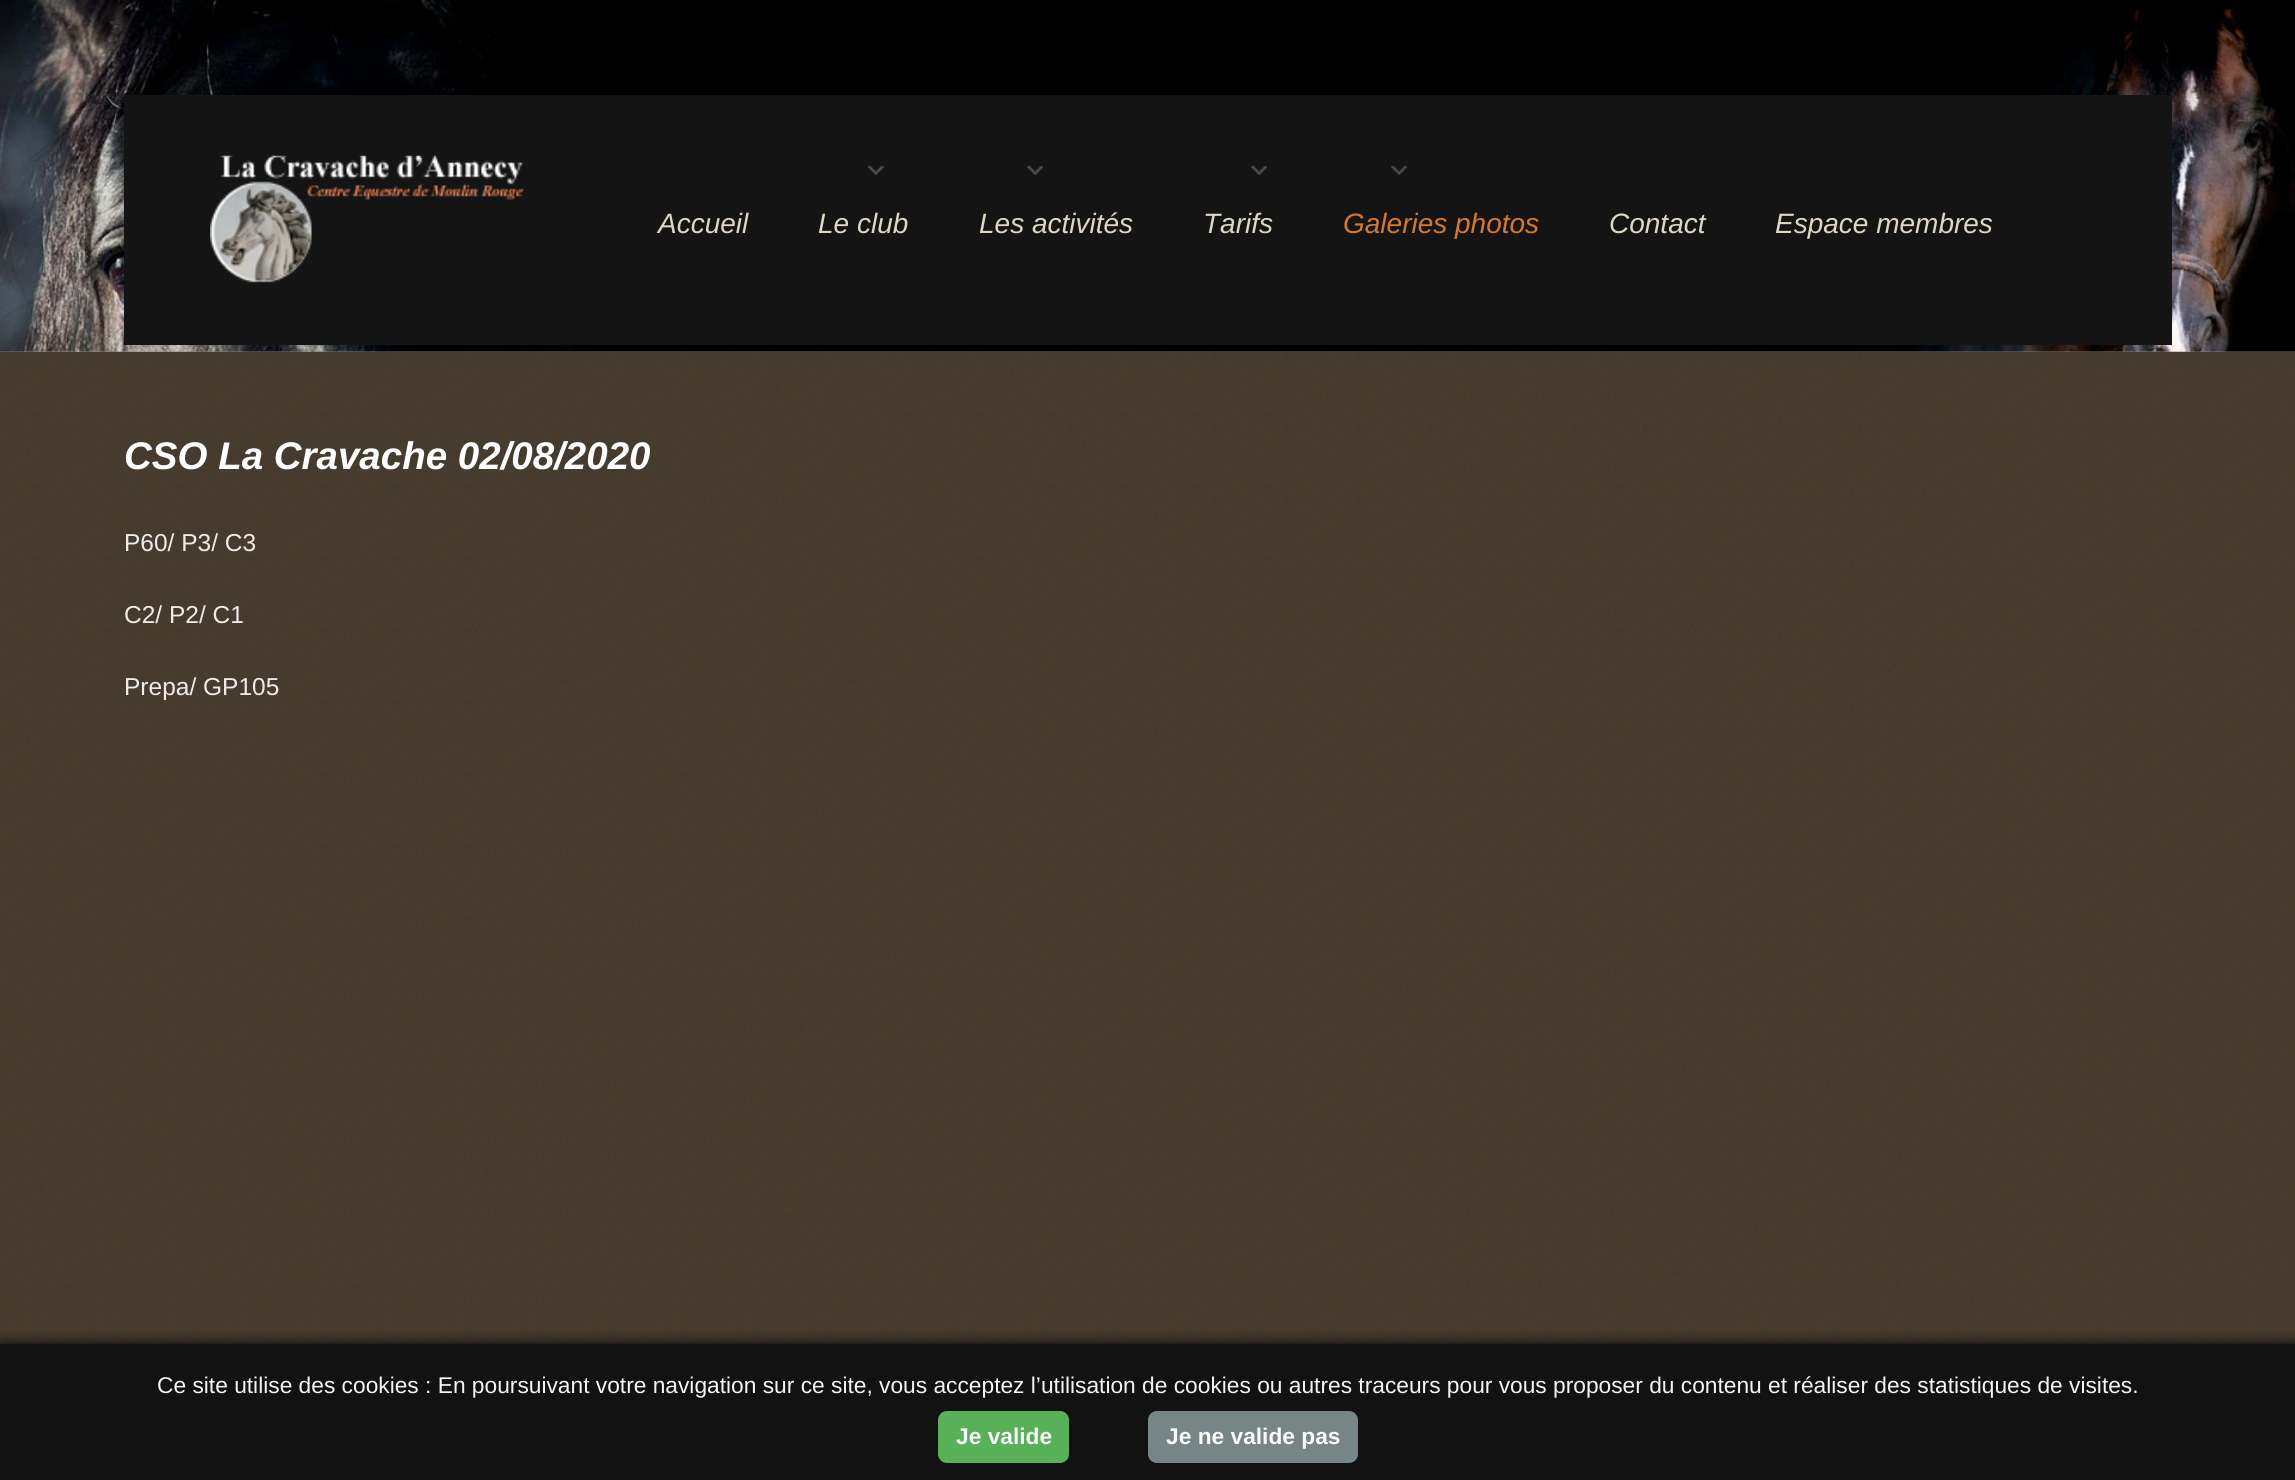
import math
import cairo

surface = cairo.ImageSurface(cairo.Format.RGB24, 2295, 1480)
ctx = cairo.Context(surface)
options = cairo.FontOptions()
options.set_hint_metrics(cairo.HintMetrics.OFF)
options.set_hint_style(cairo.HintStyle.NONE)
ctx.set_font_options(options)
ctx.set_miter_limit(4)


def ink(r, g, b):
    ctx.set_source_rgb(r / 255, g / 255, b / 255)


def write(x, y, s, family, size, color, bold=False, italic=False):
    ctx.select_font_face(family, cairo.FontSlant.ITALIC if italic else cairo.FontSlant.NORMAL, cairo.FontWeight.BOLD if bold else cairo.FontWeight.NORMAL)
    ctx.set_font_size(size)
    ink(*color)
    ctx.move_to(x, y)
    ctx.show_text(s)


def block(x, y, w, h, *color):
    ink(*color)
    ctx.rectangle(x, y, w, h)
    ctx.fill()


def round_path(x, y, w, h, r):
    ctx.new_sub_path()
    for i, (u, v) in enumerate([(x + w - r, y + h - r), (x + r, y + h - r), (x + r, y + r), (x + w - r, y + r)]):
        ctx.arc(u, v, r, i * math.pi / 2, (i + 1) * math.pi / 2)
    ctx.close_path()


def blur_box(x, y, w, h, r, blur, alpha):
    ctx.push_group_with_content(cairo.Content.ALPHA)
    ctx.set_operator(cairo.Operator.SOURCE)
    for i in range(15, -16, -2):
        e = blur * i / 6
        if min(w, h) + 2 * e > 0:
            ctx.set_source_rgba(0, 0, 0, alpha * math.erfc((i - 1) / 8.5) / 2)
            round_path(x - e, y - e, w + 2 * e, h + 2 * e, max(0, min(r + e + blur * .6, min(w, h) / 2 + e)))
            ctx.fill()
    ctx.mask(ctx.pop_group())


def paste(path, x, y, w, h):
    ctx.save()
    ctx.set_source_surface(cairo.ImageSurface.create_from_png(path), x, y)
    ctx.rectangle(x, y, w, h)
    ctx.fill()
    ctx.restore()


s1 = dict(family="Liberation Sans", size=28, color=(222, 215, 196), italic=True)
s2 = dict(family="Liberation Sans", size=28, color=(213, 120, 44), italic=True)
s3 = dict(family="Liberation Sans", size=38.5, color=(255, 255, 255), bold=True, italic=True)
s4 = dict(family="Liberation Sans", size=24.5, color=(238, 236, 233))
s5 = dict(family="Liberation Sans", size=22.75, color=(244, 244, 244))
s6 = dict(family="Liberation Sans", size=22.75, color=(248, 251, 248), bold=True)

ink(255, 255, 255)
ctx.paint()
paste("pic1.png", 0, 351, 2295, 1)
paste("pic2.png", 0, 0, 2295, 352)
block(124, 95, 2048, 250, 20, 20, 20)
paste("pic3.png", 210, 155, 314, 128)
write(658, 233, "Accueil", **s1)
paste("pic4.png", 868, 166, 16, 9)
write(818, 233, "Le club", **s1)
paste("pic5.png", 1027, 166, 16, 9)
write(979, 233, "Les activités", **s1)
paste("pic5.png", 1251, 166, 16, 9)
write(1203, 233, "Tarifs", **s1)
paste("pic6.png", 1391, 166, 16, 9)
write(1343, 233, "Galeries photos", **s2)
write(1609, 233, "Contact", **s1)
write(1775, 233, "Espace membres", **s1)
paste("pic7.png", 0, 351, 2295, 1129)
write(124, 469, "CSO La Cravache 02/08/2020", **s3)
write(124, 551, "P60/ P3/ C3", **s4)
write(124, 623, "C2/ P2/ C1", **s4)
write(124, 695, "Prepa/ GP105", **s4)
ctx.save()
ctx.rectangle(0, 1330, 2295, 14)
ctx.clip()
ink(0, 0, 0)
blur_box(0, 1344, 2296, 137, 0, 7, 0.96)
ctx.restore()
ctx.set_source_rgba(0.067, 0.067, 0.067, 0.96)
ctx.rectangle(0, 1344, 2295, 136)
ctx.fill()
write(157, 1393, "Ce site utilise des cookies : En poursuivant votre navigation sur ce site, vous acceptez l’utilisation de cookies ou autres traceurs pour vous proposer du contenu et réaliser des statistiques de visites.", **s5)
ink(88, 176, 88)
round_path(938, 1411, 131, 52, 9)
ctx.fill()
write(956, 1444, "Je valide", **s6)
ink(118, 133, 134)
round_path(1148, 1411, 210, 52, 9)
ctx.fill()
write(1166, 1444, "Je ne valide pas", **s6)
surface.write_to_png("screenshot.png")
